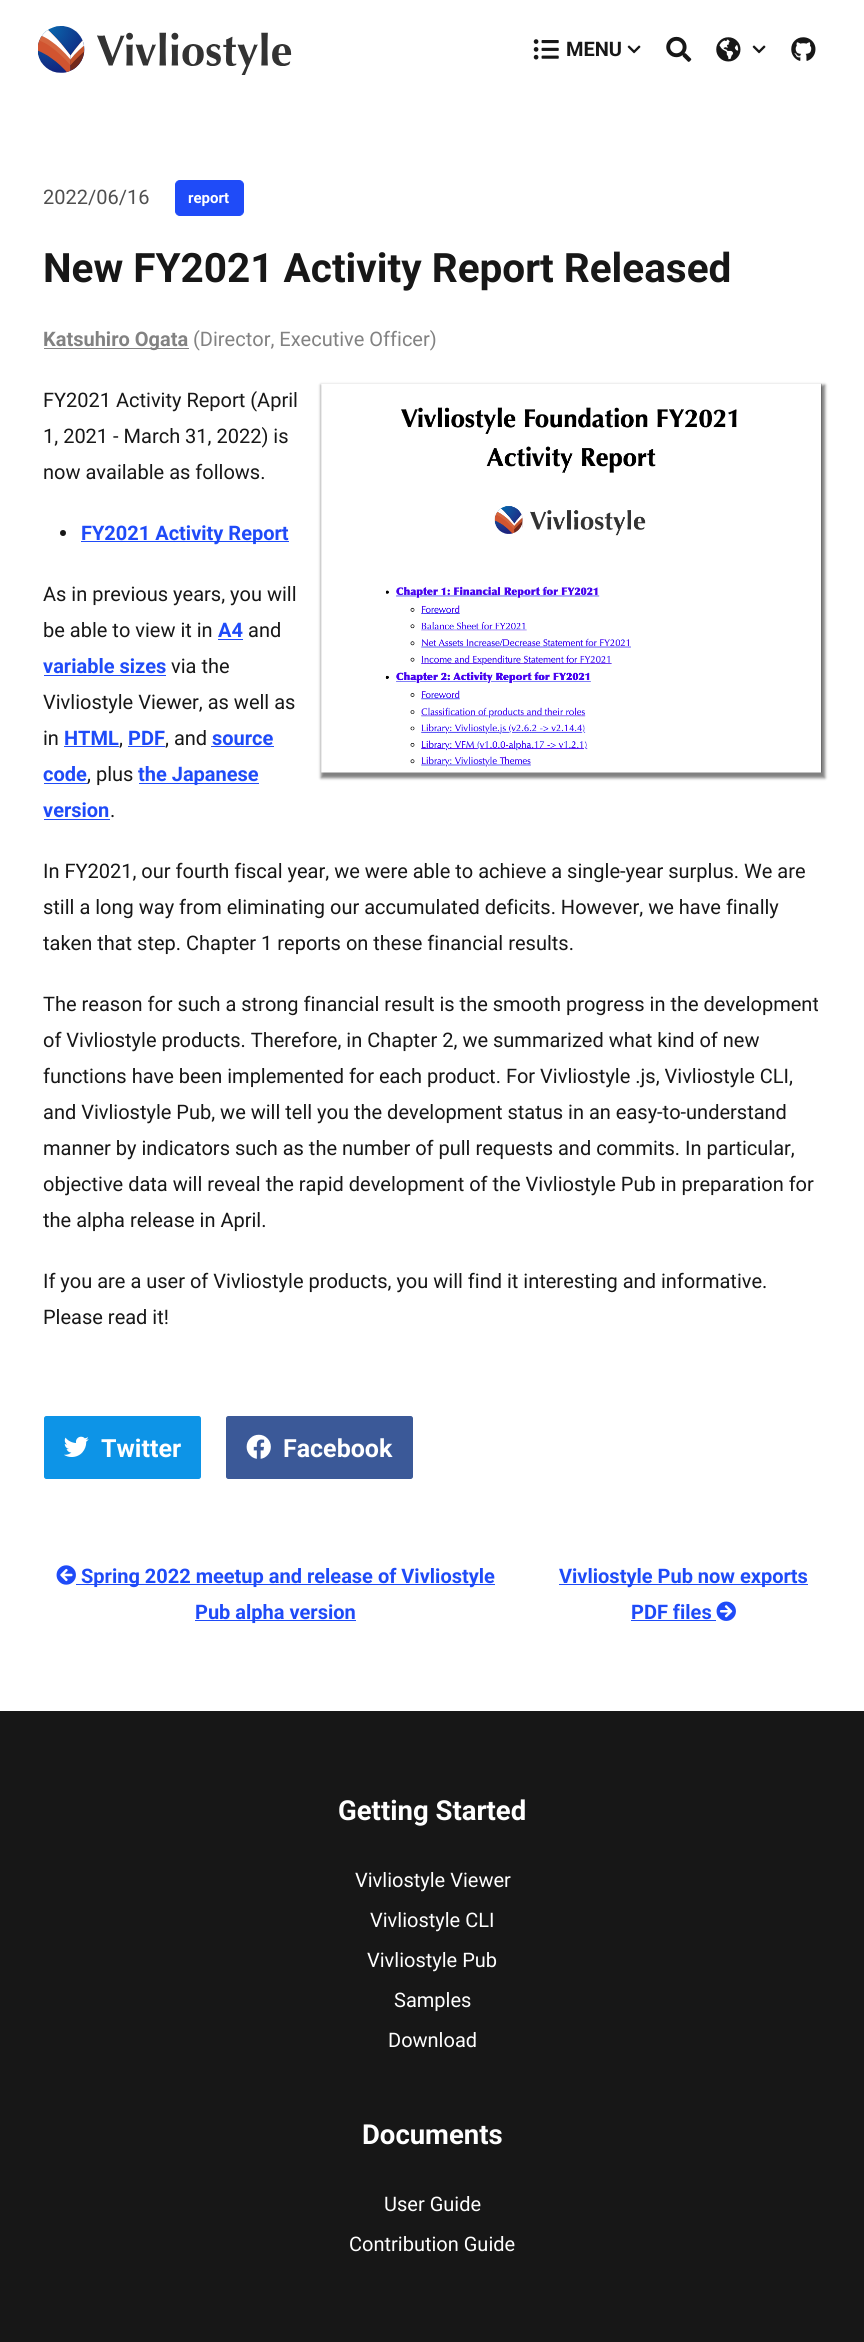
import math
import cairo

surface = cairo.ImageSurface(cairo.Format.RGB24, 864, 2342)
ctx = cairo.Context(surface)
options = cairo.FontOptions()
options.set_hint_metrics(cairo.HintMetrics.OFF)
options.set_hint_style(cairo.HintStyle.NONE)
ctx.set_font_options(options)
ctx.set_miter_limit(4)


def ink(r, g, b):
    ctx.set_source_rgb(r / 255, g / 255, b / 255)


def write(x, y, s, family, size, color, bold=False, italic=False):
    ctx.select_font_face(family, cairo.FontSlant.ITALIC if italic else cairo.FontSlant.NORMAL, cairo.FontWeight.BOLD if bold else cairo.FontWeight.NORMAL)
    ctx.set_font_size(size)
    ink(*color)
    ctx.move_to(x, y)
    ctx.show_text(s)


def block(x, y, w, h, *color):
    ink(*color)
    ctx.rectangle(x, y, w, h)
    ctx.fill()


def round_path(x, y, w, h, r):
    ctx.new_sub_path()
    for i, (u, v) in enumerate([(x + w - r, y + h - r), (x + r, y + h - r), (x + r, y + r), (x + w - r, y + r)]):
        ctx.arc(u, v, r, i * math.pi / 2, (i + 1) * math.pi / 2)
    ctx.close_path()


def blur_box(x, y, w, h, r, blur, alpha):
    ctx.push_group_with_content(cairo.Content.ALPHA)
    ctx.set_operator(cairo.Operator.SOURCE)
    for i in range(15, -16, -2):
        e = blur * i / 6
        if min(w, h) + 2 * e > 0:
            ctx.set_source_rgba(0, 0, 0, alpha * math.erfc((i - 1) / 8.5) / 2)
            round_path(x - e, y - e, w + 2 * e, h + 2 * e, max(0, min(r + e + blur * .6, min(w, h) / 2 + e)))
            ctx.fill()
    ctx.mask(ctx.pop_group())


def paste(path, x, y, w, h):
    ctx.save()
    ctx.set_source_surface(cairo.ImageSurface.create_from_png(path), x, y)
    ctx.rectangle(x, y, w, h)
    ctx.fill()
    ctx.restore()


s1 = dict(family="Roboto", size=20, color=(23, 23, 23), bold=True)
s2 = dict(family="Roboto", size=20, color=(79, 79, 79))
s3 = dict(family="Roboto", size=15, color=(255, 255, 255), bold=True)
s4 = dict(family="Roboto", size=40.5, color=(23, 23, 23), bold=True)
s5 = dict(family="Roboto", size=20, color=(130, 130, 130), bold=True)
s6 = dict(family="Roboto", size=20, color=(130, 130, 130))
s7 = dict(family="Roboto", size=20, color=(23, 23, 23))
s8 = dict(family="Roboto", size=20, color=(31, 75, 248), bold=True)
s9 = dict(family="Roboto", size=25, color=(255, 255, 255), bold=True)
s10 = dict(family="Roboto", size=27.5, color=(255, 255, 255), bold=True)
s11 = dict(family="Roboto", size=20, color=(255, 255, 255))

ink(255, 255, 255)
ctx.paint()
paste("pic1.png", 38, 26, 254, 49)
paste("pic2.png", 533, 39, 26, 21)
write(566, 56, "MENU", **s1)
paste("pic3.png", 627, 45, 14, 9)
paste("pic4.png", 666, 36, 26, 26)
paste("pic5.png", 716, 37, 25, 25)
paste("pic3.png", 752, 45, 14, 9)
paste("pic6.png", 791, 37, 25, 24)
write(43, 204, "2022/06/16", **s2)
ink(31, 75, 248)
round_path(175.5, 180.5, 68, 35, 4.5)
ctx.fill_preserve()
ctx.set_line_width(1)
ctx.stroke()
write(188, 203, "report", **s3)
write(43, 282, "New FY2021 Activity Report Released", **s4)
block(44, 348, 145, 1, 130, 130, 130)
write(43, 346, "Katsuhiro Ogata", **s5)
write(193, 346, "(Director, Executive Officer)", **s6)
write(43, 407, "FY2021 Activity Report (April", **s7)
write(43, 443, "1, 2021 - March 31, 2022) is", **s7)
write(43, 479, "now available as follows.", **s7)
ink(128, 128, 128)
blur_box(321, 385, 504, 393, 0, 1.5, 1)
paste("pic7.png", 321, 383, 501, 390)
ink(23, 23, 23)
ctx.arc(63, 533, 3, 0, 2 * math.pi)
ctx.fill()
block(81, 541, 208, 1, 31, 75, 248)
write(81, 540, "FY2021 Activity Report", **s8)
write(43, 601, "As in previous years, you will", **s7)
write(43, 637, "be able to view it in", **s7)
write(218, 637, "A4", **s8)
block(218, 639, 25, 1, 31, 75, 248)
write(248, 637, "and", **s7)
write(43, 673, "variable sizes", **s8)
block(44, 675, 122, 1, 31, 75, 248)
write(171, 673, "via the", **s7)
write(43, 709, "Vivliostyle Viewer, as well as", **s7)
write(43, 745, "in", **s7)
write(64, 745, "HTML", **s8)
block(64, 746, 55, 1, 31, 75, 248)
write(119, 745, ",", **s7)
write(128, 745, "PDF", **s8)
block(128, 746, 37, 1, 31, 75, 248)
write(165, 745, ", and", **s7)
write(212, 745, "source", **s8)
block(211, 746, 63, 1, 31, 75, 248)
write(43, 781, "code", **s8)
block(44, 783, 44, 1, 31, 75, 248)
write(87, 781, ", plus", **s7)
block(139, 783, 120, 1, 31, 75, 248)
write(138, 781, "the Japanese", **s8)
write(43, 817, "version", **s8)
block(44, 819, 66, 1, 31, 75, 248)
write(110, 817, ".", **s7)
write(43, 878, "In FY2021, our fourth fiscal year, we were able to achieve a single-year surplus. We are", **s7)
write(43, 914, "still a long way from eliminating our accumulated deficits. However, we have finally", **s7)
write(43, 950, "taken that step. Chapter 1 reports on these financial results.", **s7)
write(43, 1011, "The reason for such a strong financial result is the smooth progress in the development", **s7)
write(43, 1047, "of Vivliostyle products. Therefore, in Chapter 2, we summarized what kind of new", **s7)
write(43, 1083, "functions have been implemented for each product. For Vivliostyle .js, Vivliostyle CLI,", **s7)
write(43, 1119, "and Vivliostyle Pub, we will tell you the development status in an easy-to-understand", **s7)
write(43, 1155, "manner by indicators such as the number of pull requests and commits. In particular,", **s7)
write(43, 1191, "objective data will reveal the rapid development of the Vivliostyle Pub in preparation for", **s7)
write(43, 1227, "the alpha release in April.", **s7)
write(43, 1288, "If you are a user of Vivliostyle products, you will find it interesting and informative.", **s7)
write(43, 1324, "Please read it!", **s7)
ink(13, 148, 231)
round_path(44.5, 1416.5, 156, 62, 2)
ctx.fill_preserve()
ctx.stroke()
paste("pic8.png", 64, 1436, 25, 21)
write(101, 1457, "Twitter", **s9)
ink(59, 89, 152)
round_path(226.5, 1416.5, 186, 62, 2)
ctx.fill_preserve()
ctx.stroke()
paste("pic9.png", 246, 1434, 25, 25)
write(283, 1457, "Facebook", **s9)
paste("pic10.png", 56, 1565, 20, 20)
block(76, 1584, 419, 1, 31, 75, 248)
write(81, 1583, "Spring 2022 meetup and release of Vivliostyle", **s8)
block(195, 1620, 161, 1, 31, 75, 248)
write(195, 1619, "Pub alpha version", **s8)
block(559, 1584, 249, 1, 31, 75, 248)
write(559, 1583, "Vivliostyle Pub now exports", **s8)
write(631, 1619, "PDF files", **s8)
block(631, 1620, 85, 1, 31, 75, 248)
paste("pic11.png", 716, 1601, 20, 20)
block(0, 1711, 864, 631, 23, 23, 23)
write(338, 1820, "Getting Started", **s10)
write(355, 1887, "Vivliostyle Viewer", **s11)
write(370, 1927, "Vivliostyle CLI", **s11)
write(367, 1967, "Vivliostyle Pub", **s11)
write(394, 2007, "Samples", **s11)
write(388, 2047, "Download", **s11)
write(362, 2144, "Documents", **s10)
write(384, 2211, "User Guide", **s11)
write(349, 2251, "Contribution Guide", **s11)
surface.write_to_png("screenshot.png")
